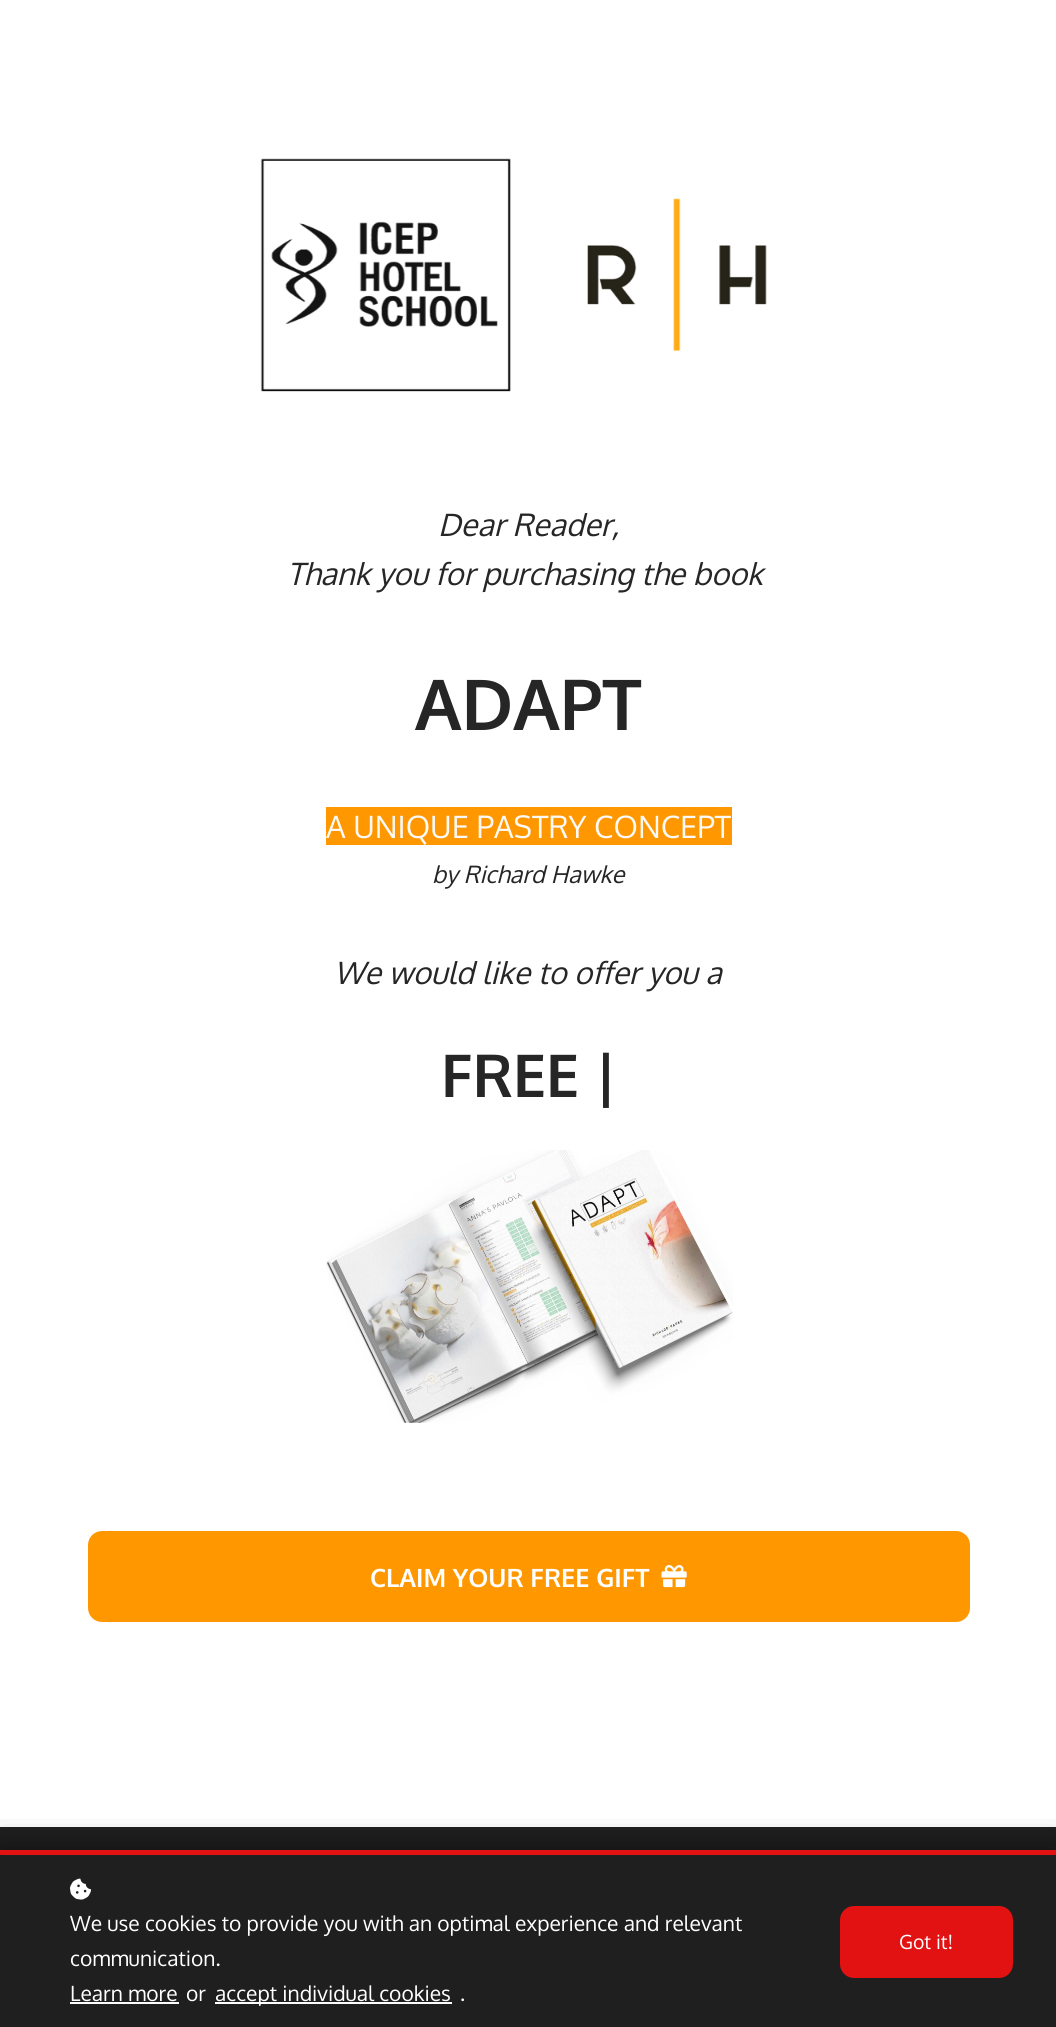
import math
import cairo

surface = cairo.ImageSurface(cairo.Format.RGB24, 1056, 2027)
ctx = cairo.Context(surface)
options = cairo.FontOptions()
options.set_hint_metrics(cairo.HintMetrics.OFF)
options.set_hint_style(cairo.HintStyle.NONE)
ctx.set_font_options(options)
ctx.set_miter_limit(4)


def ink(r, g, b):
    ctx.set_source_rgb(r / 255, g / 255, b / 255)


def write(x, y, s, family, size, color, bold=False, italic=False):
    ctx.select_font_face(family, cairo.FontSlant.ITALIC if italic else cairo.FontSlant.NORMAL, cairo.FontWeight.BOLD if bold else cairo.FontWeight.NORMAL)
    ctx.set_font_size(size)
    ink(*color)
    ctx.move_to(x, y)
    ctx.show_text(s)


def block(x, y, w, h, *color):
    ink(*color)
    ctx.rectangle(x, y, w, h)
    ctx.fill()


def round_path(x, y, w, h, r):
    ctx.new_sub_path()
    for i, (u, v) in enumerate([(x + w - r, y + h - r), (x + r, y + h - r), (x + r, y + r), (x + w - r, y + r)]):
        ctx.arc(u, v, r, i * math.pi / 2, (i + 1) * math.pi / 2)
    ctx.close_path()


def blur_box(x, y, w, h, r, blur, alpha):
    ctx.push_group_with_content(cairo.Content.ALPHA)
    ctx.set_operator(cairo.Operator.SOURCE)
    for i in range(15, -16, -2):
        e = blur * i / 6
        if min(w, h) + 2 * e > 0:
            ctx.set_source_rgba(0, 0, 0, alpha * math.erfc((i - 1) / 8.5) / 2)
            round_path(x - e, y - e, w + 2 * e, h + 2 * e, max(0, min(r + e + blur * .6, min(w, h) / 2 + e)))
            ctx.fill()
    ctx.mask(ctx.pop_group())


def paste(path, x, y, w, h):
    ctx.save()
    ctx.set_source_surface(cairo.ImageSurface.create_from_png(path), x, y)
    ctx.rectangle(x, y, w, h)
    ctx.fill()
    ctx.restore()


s1 = dict(family="Oxygen", size=30.75, color=(38, 38, 38), italic=True)
s2 = dict(family="Oxygen", size=70, color=(38, 38, 38), bold=True)
s3 = dict(family="Oxygen", size=30.75, color=(252, 249, 246))
s4 = dict(family="Oxygen", size=23.75, color=(38, 38, 38), italic=True)
s5 = dict(family="Oxygen", size=59, color=(38, 38, 38), bold=True)
s6 = dict(family="Oxygen", size=25.25, color=(255, 255, 255), bold=True)
s7 = dict(family="Oxygen", size=21, color=(255, 255, 255))
s8 = dict(family="Oxygen", size=19.5, color=(255, 255, 255))

ink(255, 255, 255)
ctx.paint()
paste("pic1.png", 260, 158, 507, 234)
write(438, 536, "Dear Reader,", **s1)
write(287, 585, "Thank you for purchasing the book", **s1)
write(415, 730, "ADAPT", **s2)
block(326, 807, 406, 38, 255, 152, 0)
write(326, 838, "A UNIQUE PASTRY CONCEPT", **s3)
write(432, 883, "by Richard Hawke", **s4)
write(334, 984, "We would like to offer you a", **s1)
write(441, 1097, "FREE |", **s5)
paste("pic2.png", 326, 1150, 407, 273)
ink(255, 152, 0)
round_path(88, 1531, 882, 91, 14)
ctx.fill()
write(370, 1587, "CLAIM YOUR FREE GIFT", **s6)
paste("pic3.png", 661, 1565, 26, 23)
block(0, 1827, 1056, 200, 31, 31, 31)
ctx.save()
ctx.rectangle(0, 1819, 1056, 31)
ctx.clip()
ink(0, 0, 0)
blur_box(0, 1850, 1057, 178, 0, 17.5, 0.5)
ctx.restore()
block(0, 1850, 1056, 5, 226, 18, 18)
paste("pic4.png", 70, 1878, 21, 22)
write(70, 1931, "We use cookies to provide you with an optimal experience and relevant", **s7)
write(70, 1966, "communication.", **s7)
write(70, 2001, "Learn more", **s7)
block(70, 2002, 109, 2, 255, 255, 255)
write(186, 2001, "or", **s7)
block(215, 2002, 237, 2, 255, 255, 255)
write(215, 2001, "accept individual cookies", **s7)
write(460, 2001, ".", **s7)
ink(226, 18, 18)
round_path(840, 1906, 173, 72, 14)
ctx.fill()
write(899, 1949, "Got it!", **s8)
surface.write_to_png("screenshot.png")
